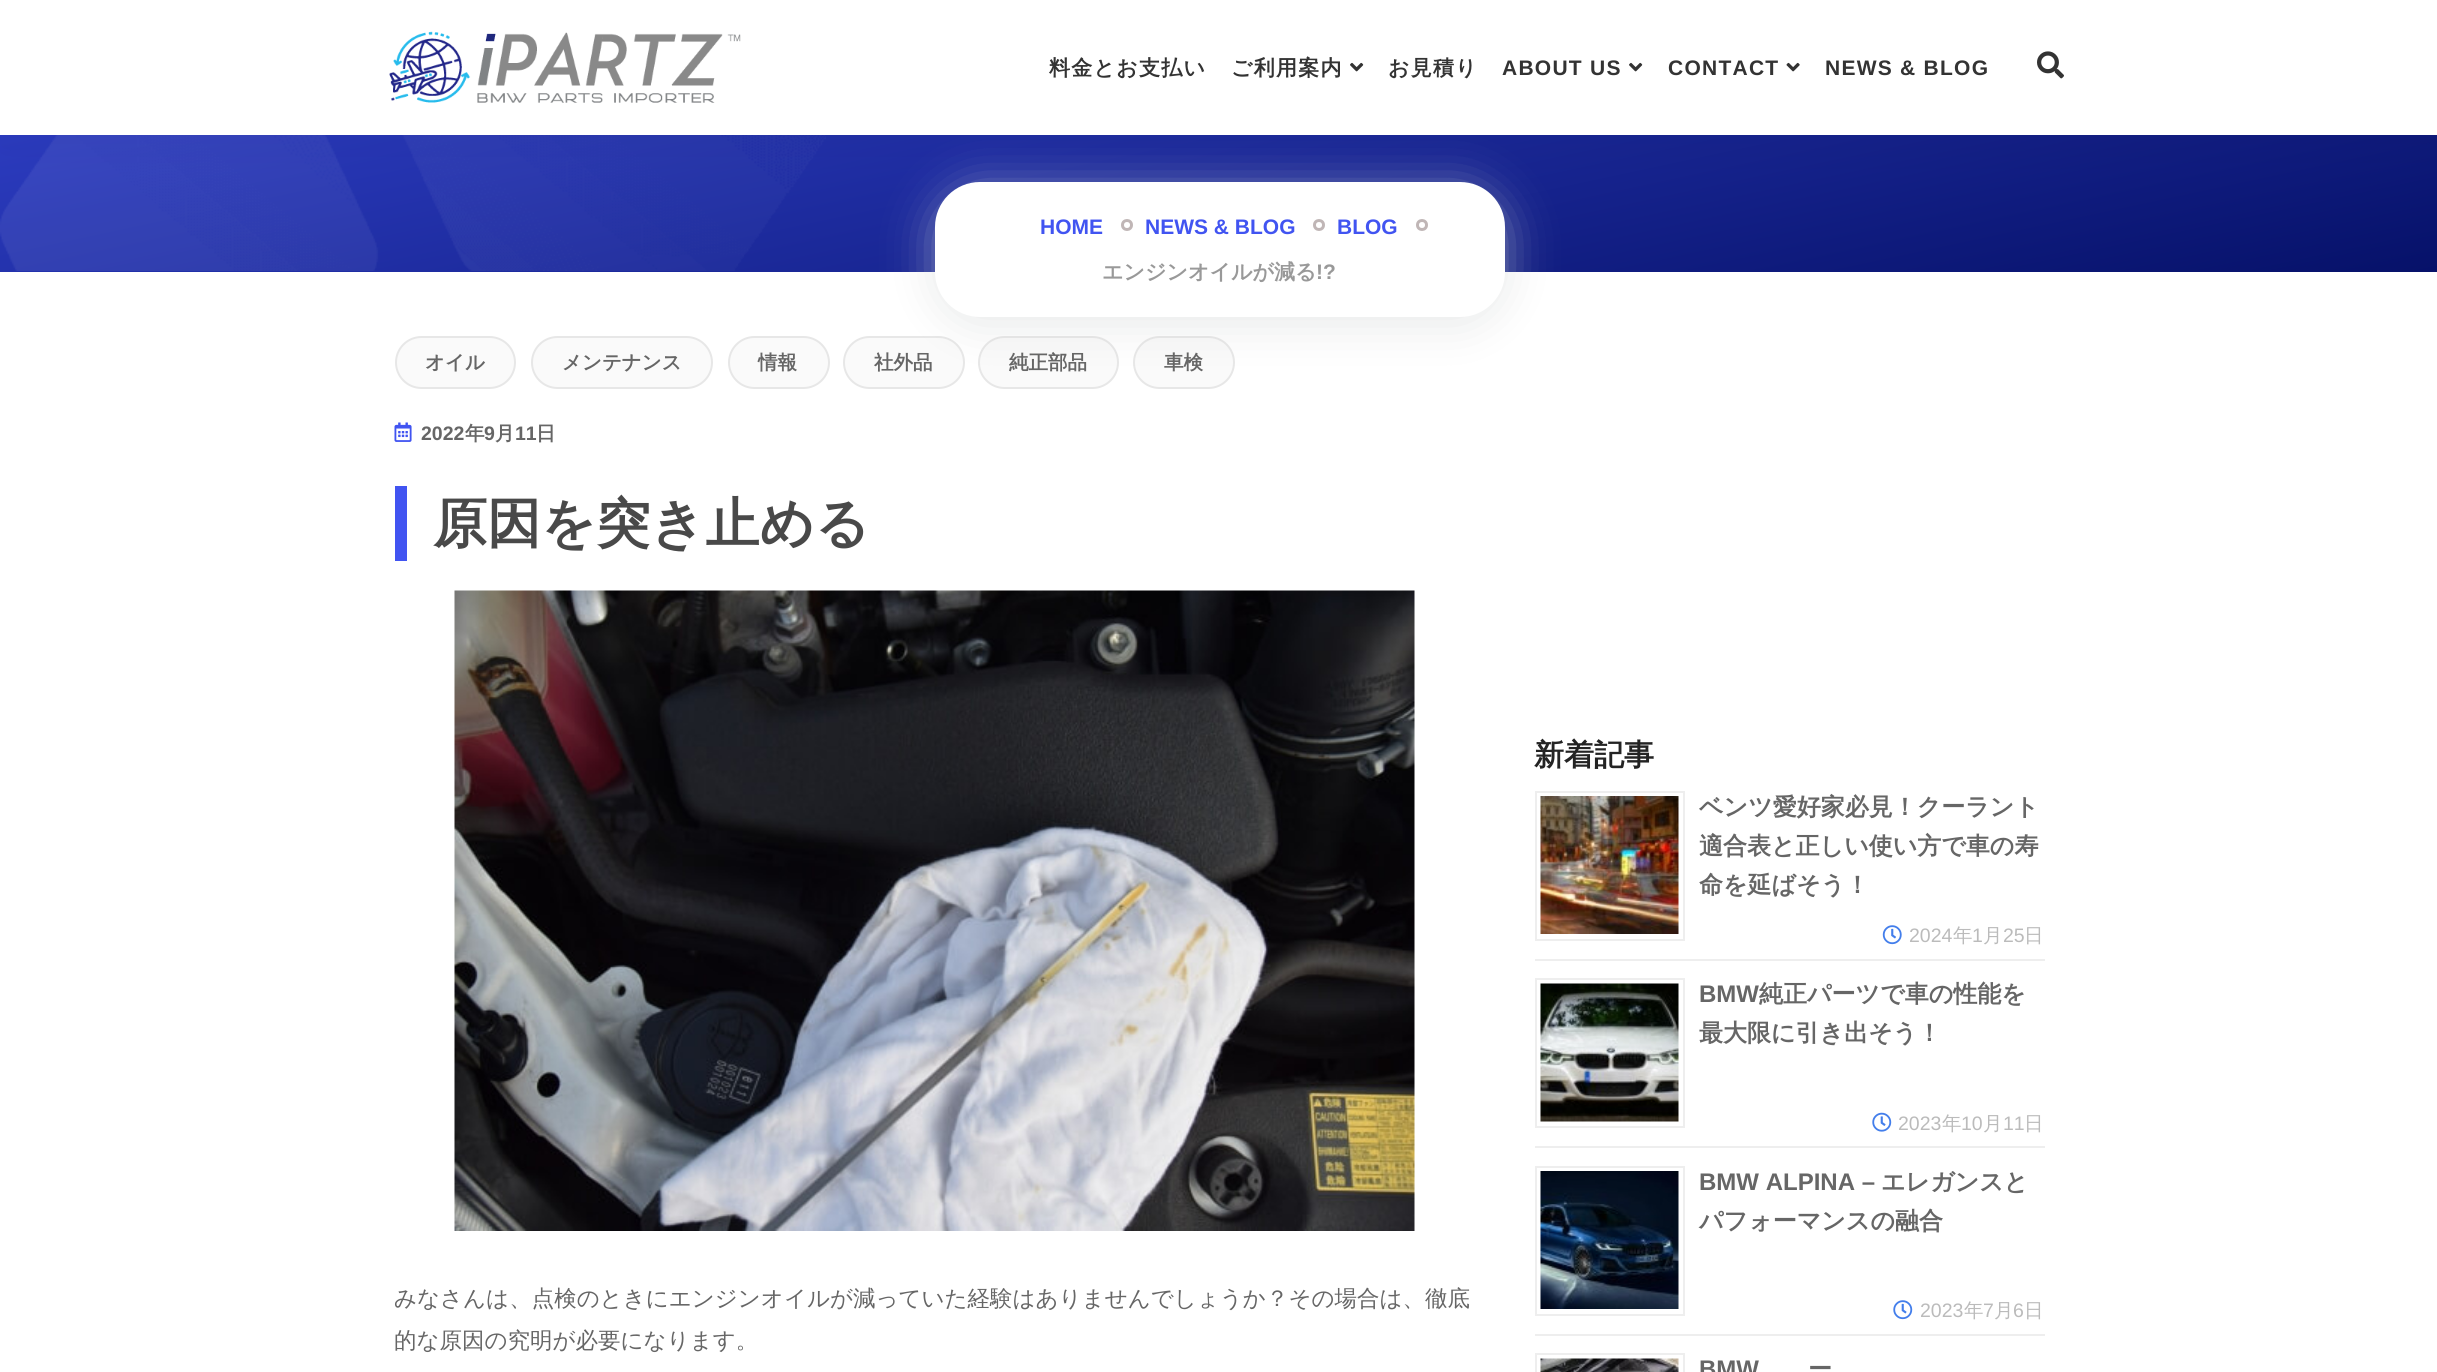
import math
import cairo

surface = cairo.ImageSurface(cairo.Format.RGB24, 2437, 1372)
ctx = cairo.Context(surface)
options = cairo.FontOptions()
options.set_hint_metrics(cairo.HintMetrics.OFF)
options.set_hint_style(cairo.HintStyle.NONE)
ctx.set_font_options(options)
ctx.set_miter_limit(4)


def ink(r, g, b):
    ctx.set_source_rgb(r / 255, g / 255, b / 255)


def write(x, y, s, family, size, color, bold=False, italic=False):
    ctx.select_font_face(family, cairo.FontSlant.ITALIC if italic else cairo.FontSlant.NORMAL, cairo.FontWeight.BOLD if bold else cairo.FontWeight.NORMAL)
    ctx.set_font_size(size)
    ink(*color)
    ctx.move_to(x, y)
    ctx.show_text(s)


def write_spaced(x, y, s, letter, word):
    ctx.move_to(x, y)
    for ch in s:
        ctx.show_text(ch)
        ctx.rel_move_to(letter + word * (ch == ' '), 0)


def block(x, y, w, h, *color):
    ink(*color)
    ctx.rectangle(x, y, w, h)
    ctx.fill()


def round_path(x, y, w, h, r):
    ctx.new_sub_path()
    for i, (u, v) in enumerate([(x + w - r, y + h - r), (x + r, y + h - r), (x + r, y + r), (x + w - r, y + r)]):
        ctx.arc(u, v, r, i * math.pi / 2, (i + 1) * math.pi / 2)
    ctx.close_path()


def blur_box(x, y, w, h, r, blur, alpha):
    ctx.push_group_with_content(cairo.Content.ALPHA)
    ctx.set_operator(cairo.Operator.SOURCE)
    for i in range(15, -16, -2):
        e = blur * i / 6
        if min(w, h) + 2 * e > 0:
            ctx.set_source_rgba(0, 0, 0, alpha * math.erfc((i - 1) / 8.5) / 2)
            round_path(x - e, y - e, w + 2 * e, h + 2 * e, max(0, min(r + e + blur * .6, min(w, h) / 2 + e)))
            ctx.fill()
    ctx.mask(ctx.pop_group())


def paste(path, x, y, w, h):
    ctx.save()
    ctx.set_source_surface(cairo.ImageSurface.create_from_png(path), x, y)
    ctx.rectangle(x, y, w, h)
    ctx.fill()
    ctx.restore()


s1 = dict(family="Liberation Sans", size=21, color=(65, 84, 241), bold=True)
s2 = dict(family="WenQuanYi Zen Hei", size=21, color=(153, 153, 153), bold=True)
s3 = dict(family="Liberation Sans", size=21, color=(153, 153, 153), bold=True)
s4 = dict(family="WenQuanYi Zen Hei", size=19.5, color=(102, 102, 102), bold=True)
s5 = dict(family="Liberation Sans", size=19.5, color=(102, 102, 102), bold=True)
s6 = dict(family="WenQuanYi Zen Hei", size=54, color=(73, 73, 73), bold=True)
s7 = dict(family="WenQuanYi Zen Hei Medium", size=22.5, color=(102, 102, 102))
s8 = dict(family="WenQuanYi Zen Hei", size=30, color=(35, 35, 35), bold=True)
s9 = dict(family="WenQuanYi Zen Hei", size=24, color=(102, 102, 102), bold=True)
s10 = dict(family="Liberation Sans", size=19.5, color=(187, 187, 187))
s11 = dict(family="WenQuanYi Zen Hei Medium", size=19.5, color=(187, 187, 187))
s12 = dict(family="Liberation Sans", size=24, color=(102, 102, 102), bold=True)

ink(255, 255, 255)
ctx.paint()
gradient = cairo.LinearGradient(1112, -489, 1326, 510)
gradient.add_color_stop_rgba(0, 0.255, 0.329, 0.945, 1)
gradient.add_color_stop_rgba(1, 0.024, 0.067, 0.412, 1)
ctx.set_source(gradient)
ctx.rectangle(0, 135, 2437, 137)
ctx.fill()
paste("pic5.png", 0, 135, 826, 136)
ink(250, 250, 250)
round_path(844, 337, 120, 51, 25.5)
ctx.fill_preserve()
ink(231, 231, 231)
ctx.stroke()
ink(250, 250, 250)
round_path(979, 337, 139, 51, 25.5)
ctx.fill_preserve()
ink(231, 231, 231)
ctx.stroke()
ink(250, 250, 250)
round_path(1134, 337, 100, 51, 25.5)
ctx.fill_preserve()
ink(231, 231, 231)
ctx.stroke()
ink(214, 215, 216)
blur_box(935, 189, 570, 135, 45, 22.5, 0.57)
ink(255, 255, 255)
round_path(935, 182, 570, 135, 45)
ctx.fill()
ink(0, 0, 0)
blur_box(0, 12, 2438, 135, 0, 19, 0.04)
block(0, 0, 2437, 135, 255, 255, 255)
paste("pic1.png", 389, 31, 352, 72)
ctx.select_font_face("WenQuanYi Zen Hei", cairo.FontSlant.NORMAL, cairo.FontWeight.BOLD)
ctx.set_font_size(21)
ink(51, 51, 51)
write_spaced(1049, 75, "料金とお支払い", 1.25, 0)
write_spaced(1231, 75, "ご利用案内", 1.25, 0)
paste("pic2.png", 1350, 62, 14, 10)
write_spaced(1388, 75, "お見積り", 1.25, 0)
ctx.select_font_face("Liberation Sans", cairo.FontSlant.NORMAL, cairo.FontWeight.BOLD)
write_spaced(1502, 75, "ABOUT US", 1.25, 0)
paste("pic2.png", 1629, 62, 14, 10)
write_spaced(1668, 75, "CONTACT", 1.25, 0)
paste("pic3.png", 1786, 62, 14, 10)
write_spaced(1825, 75, "NEWS & BLOG", 1.25, 0)
paste("pic4.png", 2037, 51, 27, 28)
write(1040, 234, "HOME", **s1)
ctx.new_path()
ctx.arc(1127, 225, 4.5, 0, 2 * math.pi)
ink(192, 182, 182)
ctx.set_line_width(3)
ctx.stroke()
write(1145, 234, "NEWS & BLOG", **s1)
ctx.new_path()
ctx.arc(1319, 225, 4.5, 0, 2 * math.pi)
ink(192, 182, 182)
ctx.stroke()
write(1337, 234, "BLOG", **s1)
ctx.new_path()
ctx.arc(1422, 225, 4.5, 0, 2 * math.pi)
ink(192, 182, 182)
ctx.stroke()
write(1102, 279, "エンジンオイルが減る", **s2)
write(1316, 279, "!?", **s3)
ink(250, 250, 250)
round_path(396, 337, 119, 51, 25.5)
ctx.fill_preserve()
ink(231, 231, 231)
ctx.set_line_width(2)
ctx.stroke()
write(425, 369, "オイル", **s4)
ink(250, 250, 250)
round_path(532, 337, 180, 51, 25.5)
ctx.fill_preserve()
ink(231, 231, 231)
ctx.stroke()
write(562, 369, "メンテナンス", **s4)
ink(250, 250, 250)
round_path(729, 337, 100, 51, 25.5)
ctx.fill_preserve()
ink(231, 231, 231)
ctx.stroke()
write(758, 369, "情報", **s4)
write(874, 369, "社外品", **s4)
write(1009, 369, "純正部品", **s4)
write(1164, 369, "車検", **s4)
paste("pic6.png", 394, 422, 18, 20)
write(421, 440, "2022", **s5)
write(465, 440, "年", **s4)
write(484, 440, "9", **s5)
write(495, 440, "月", **s4)
write(515, 440, "11", **s5)
write(536, 440, "日", **s4)
block(395, 486, 12, 75, 65, 84, 241)
write(433, 542, "原因を突き止める", **s6)
paste("pic7.png", 454, 590, 961, 641)
write(394, 1306, "みなさんは、点検のときにエンジンオイルが減っていた経験はありませんでしょうか？その場合は、徹底", **s7)
write(394, 1348, "的な原因の究明が必要になります。", **s7)
write(1534, 765, "新着記事", **s8)
block(1535, 959, 510, 2, 238, 238, 238)
ctx.rectangle(1536, 792, 148, 148)
ctx.stroke()
paste("pic8.png", 1540, 796, 139, 138)
write(1699, 815, "ベンツ愛好家必見！クーラント", **s9)
write(1699, 854, "適合表と正しい使い方で車の寿", **s9)
write(1699, 893, "命を延ばそう！", **s9)
paste("pic9.png", 1882, 925, 20, 20)
write(1909, 942, "2024", **s10)
write(1953, 942, "年", **s11)
write(1972, 942, "1", **s10)
write(1983, 942, "月", **s11)
write(2003, 942, "25", **s10)
write(2024, 942, "日", **s11)
block(1535, 1146, 510, 2, 238, 238, 238)
ctx.rectangle(1536, 979, 148, 148)
ctx.stroke()
paste("pic10.png", 1540, 983, 139, 139)
write(1699, 1002, "BMW", **s12)
write(1759, 1002, "純正パーツで車の性能を", **s9)
write(1699, 1041, "最大限に引き出そう！", **s9)
paste("pic11.png", 1872, 1112, 20, 20)
write(1898, 1130, "2023", **s10)
write(1942, 1130, "年", **s11)
write(1961, 1130, "10", **s10)
write(1983, 1130, "月", **s11)
write(2003, 1130, "11", **s10)
write(2024, 1130, "日", **s11)
block(1535, 1334, 510, 2, 238, 238, 238)
ctx.rectangle(1536, 1167, 148, 148)
ctx.stroke()
paste("pic12.png", 1540, 1171, 139, 138)
write(1699, 1190, "BMW ALPINA –", **s12)
write(1881, 1190, "エレガンスと", **s9)
write(1699, 1229, "パフォーマンスの融合", **s9)
paste("pic13.png", 1893, 1300, 20, 20)
write(1920, 1317, "2023", **s10)
write(1964, 1317, "年", **s11)
write(1983, 1317, "7", **s10)
write(1994, 1317, "月", **s11)
write(2013, 1317, "6", **s10)
write(2024, 1317, "日", **s11)
ctx.rectangle(1536, 1354, 148, 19)
ink(238, 238, 238)
ctx.stroke()
paste("pic14.png", 1540, 1358, 139, 14)
write(1699, 1377, "BMW", **s12)
write(1808, 1377, "ー", **s9)
surface.write_to_png("screenshot.png")
